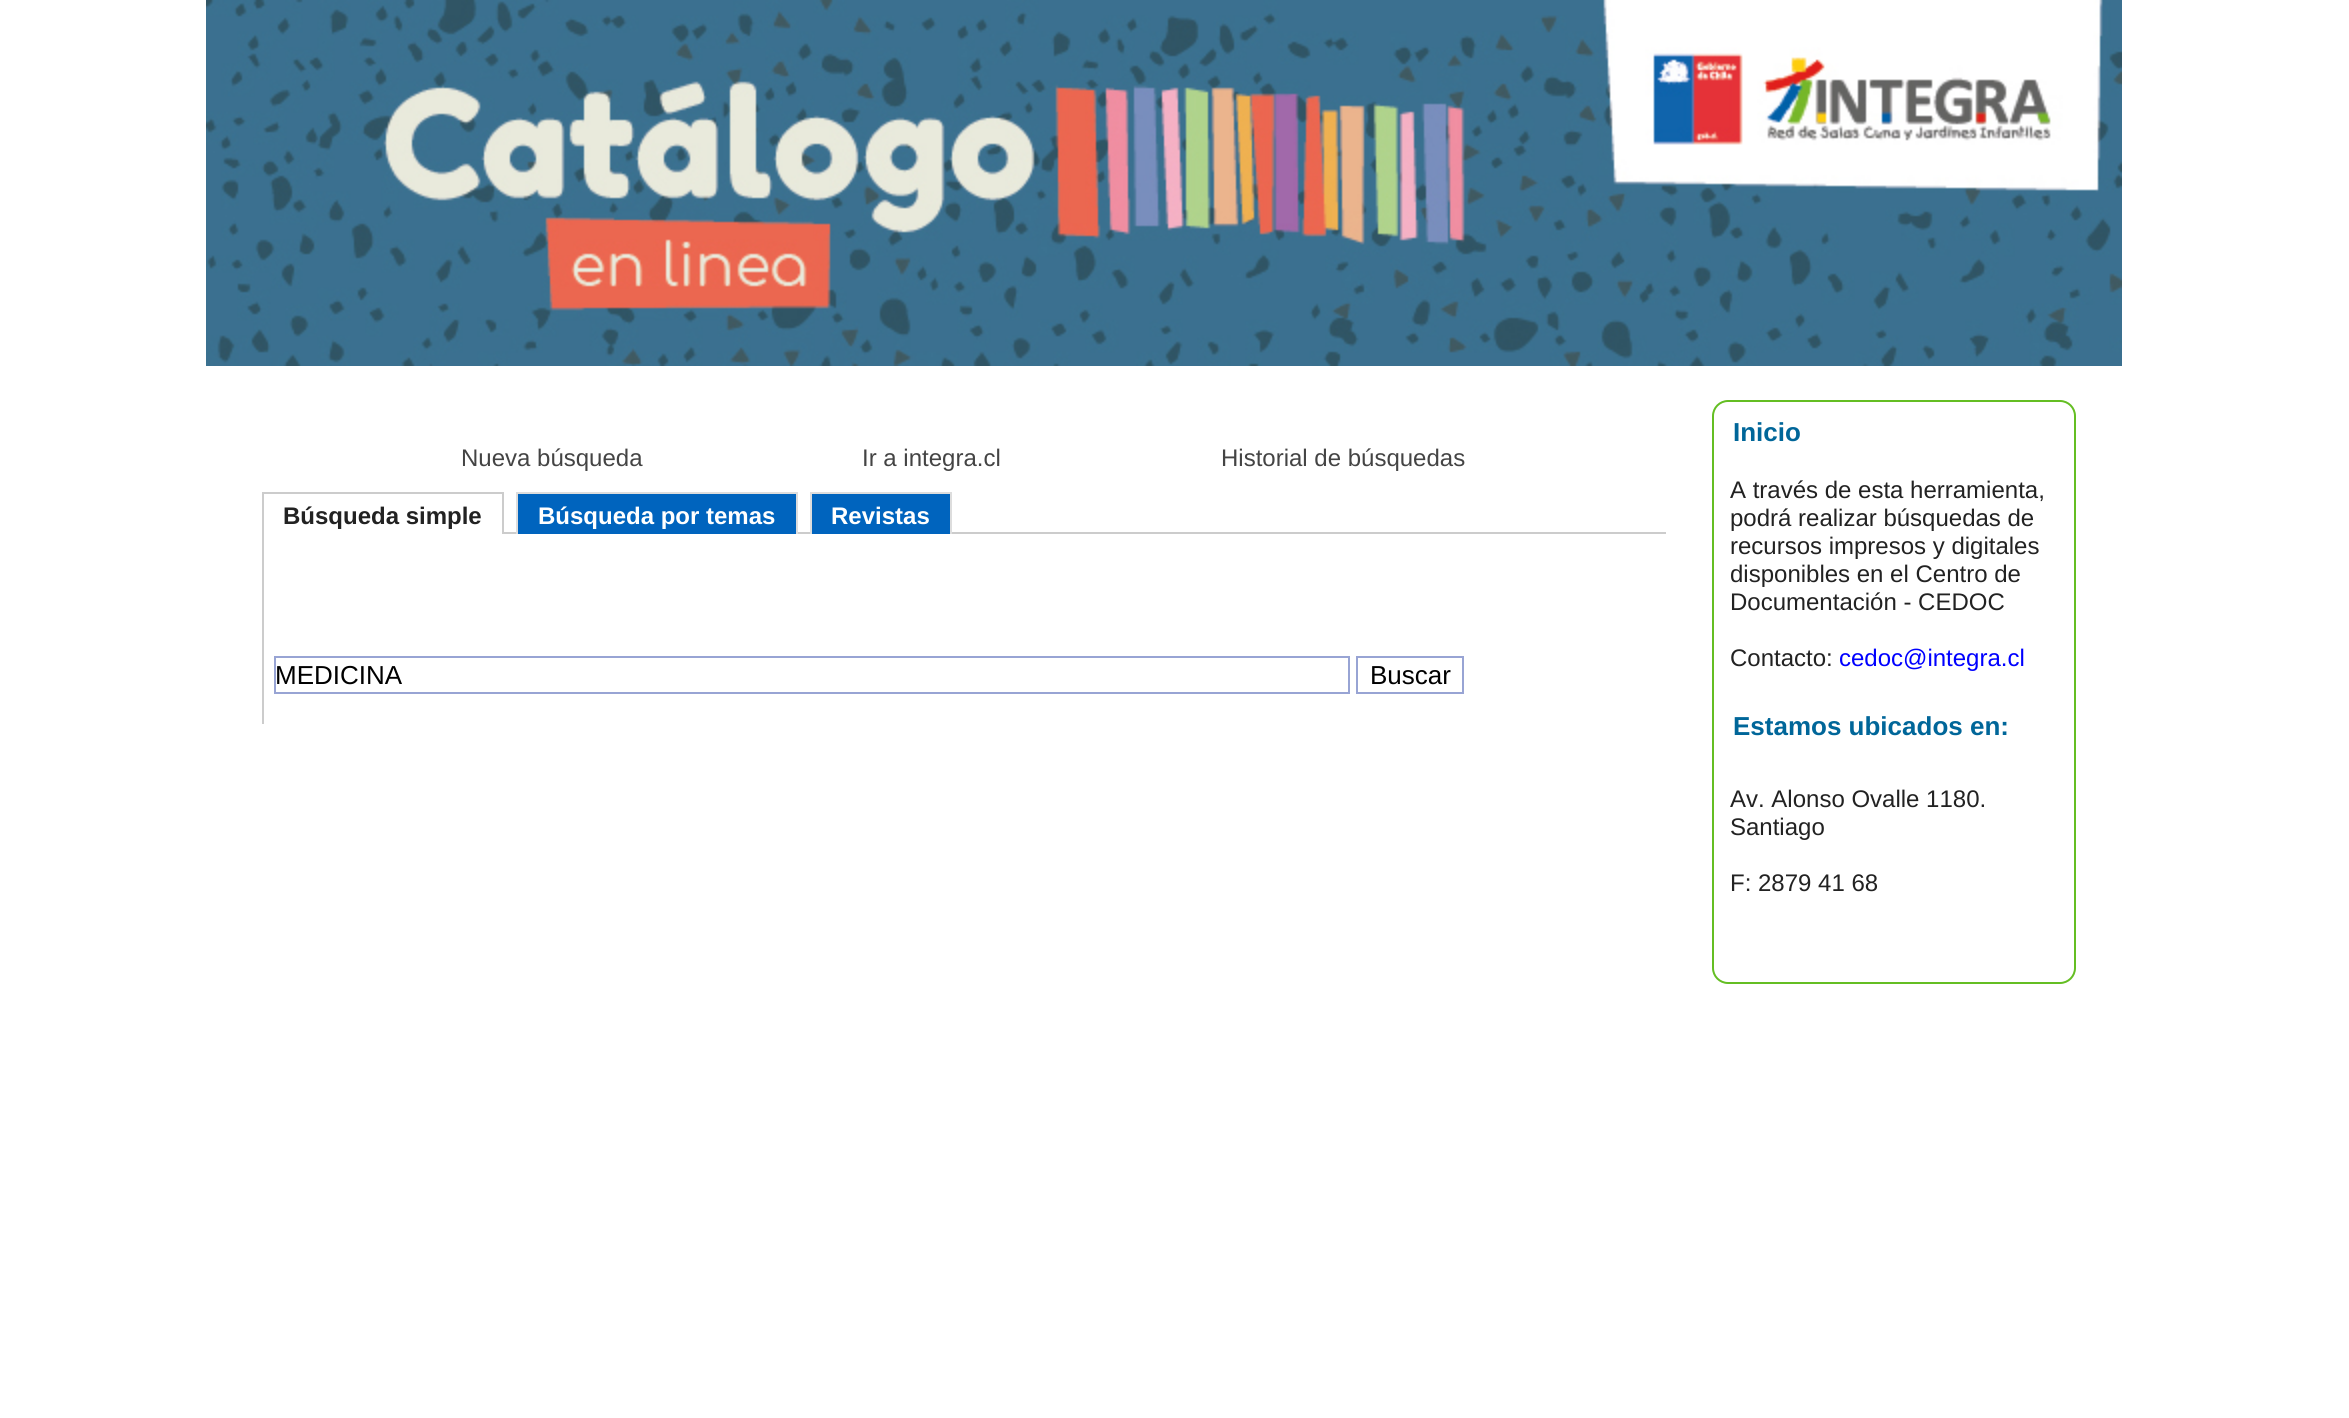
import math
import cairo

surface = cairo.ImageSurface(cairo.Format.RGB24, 2349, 1418)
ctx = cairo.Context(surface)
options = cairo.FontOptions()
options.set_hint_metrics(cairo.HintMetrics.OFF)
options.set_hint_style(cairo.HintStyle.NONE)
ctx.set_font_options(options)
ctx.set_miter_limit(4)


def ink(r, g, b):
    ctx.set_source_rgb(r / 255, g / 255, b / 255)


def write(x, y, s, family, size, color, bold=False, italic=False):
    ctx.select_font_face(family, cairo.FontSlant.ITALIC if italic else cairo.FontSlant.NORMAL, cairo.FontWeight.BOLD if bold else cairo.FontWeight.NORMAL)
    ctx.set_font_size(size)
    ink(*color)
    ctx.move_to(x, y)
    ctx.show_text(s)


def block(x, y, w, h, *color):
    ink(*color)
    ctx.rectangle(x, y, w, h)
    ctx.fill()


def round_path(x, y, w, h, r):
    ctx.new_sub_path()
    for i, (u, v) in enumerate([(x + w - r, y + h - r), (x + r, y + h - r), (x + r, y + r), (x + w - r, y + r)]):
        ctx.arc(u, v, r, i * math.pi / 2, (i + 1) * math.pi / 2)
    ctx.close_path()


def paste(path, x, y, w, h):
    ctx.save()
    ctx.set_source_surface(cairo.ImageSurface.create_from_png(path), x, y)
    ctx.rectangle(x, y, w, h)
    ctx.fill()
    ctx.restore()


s1 = dict(family="Liberation Sans", size=24, color=(68, 68, 68))
s2 = dict(family="Liberation Sans", size=24, color=(34, 34, 34), bold=True)
s3 = dict(family="Liberation Sans", size=24, color=(255, 255, 255), bold=True)
s4 = dict(family="Liberation Sans", size=26, color=(0, 0, 0))
s5 = dict(family="Liberation Sans", size=26, color=(0, 102, 153), bold=True)
s6 = dict(family="Liberation Sans", size=24, color=(34, 34, 34))
s7 = dict(family="Liberation Sans", size=24, color=(0, 0, 255))

ink(255, 255, 255)
ctx.paint()
paste("pic1.png", 206, 0, 1916, 366)
write(461, 466, "Nueva búsqueda", **s1)
write(862, 466, "Ir a integra.cl", **s1)
write(1221, 466, "Historial de búsquedas", **s1)
block(504, 532, 1162, 2, 204, 204, 204)
block(262, 532, 2, 192, 204, 204, 204)
block(262, 492, 242, 2, 204, 204, 204)
block(502, 492, 2, 42, 204, 204, 204)
block(262, 492, 2, 42, 204, 204, 204)
write(283, 524, "Búsqueda simple", **s2)
block(518, 494, 278, 40, 0, 100, 190)
block(516, 492, 282, 2, 221, 221, 221)
block(796, 492, 2, 42, 221, 221, 221)
block(516, 492, 2, 42, 221, 221, 221)
write(538, 524, "Búsqueda por temas", **s3)
block(812, 494, 138, 40, 0, 100, 190)
block(810, 492, 142, 2, 221, 221, 221)
block(950, 492, 2, 42, 221, 221, 221)
block(810, 492, 2, 42, 221, 221, 221)
write(831, 524, "Revistas", **s3)
ctx.rectangle(275, 657, 1074, 36)
ink(152, 164, 212)
ctx.stroke()
write(275, 684, "MEDICINA", **s4)
ctx.rectangle(1357, 657, 106, 36)
ink(152, 164, 212)
ctx.stroke()
write(1370, 684, "Buscar", **s4)
round_path(1713, 401, 362, 582, 15)
ink(100, 190, 35)
ctx.stroke()
write(1733, 441, "Inicio", **s5)
write(1730, 498, "A través de esta herramienta,", **s6)
write(1730, 526, "podrá realizar búsquedas de", **s6)
write(1730, 554, "recursos impresos y digitales", **s6)
write(1730, 582, "disponibles en el Centro de", **s6)
write(1730, 610, "Documentación - CEDOC", **s6)
write(1730, 666, "Contacto:", **s6)
write(1839, 666, "cedoc@integra.cl", **s7)
write(1733, 735, "Estamos ubicados en:", **s5)
write(1730, 807, "Av. Alonso Ovalle 1180.", **s6)
write(1730, 835, "Santiago", **s6)
write(1730, 891, "F: 2879 41 68", **s6)
surface.write_to_png("screenshot.png")
